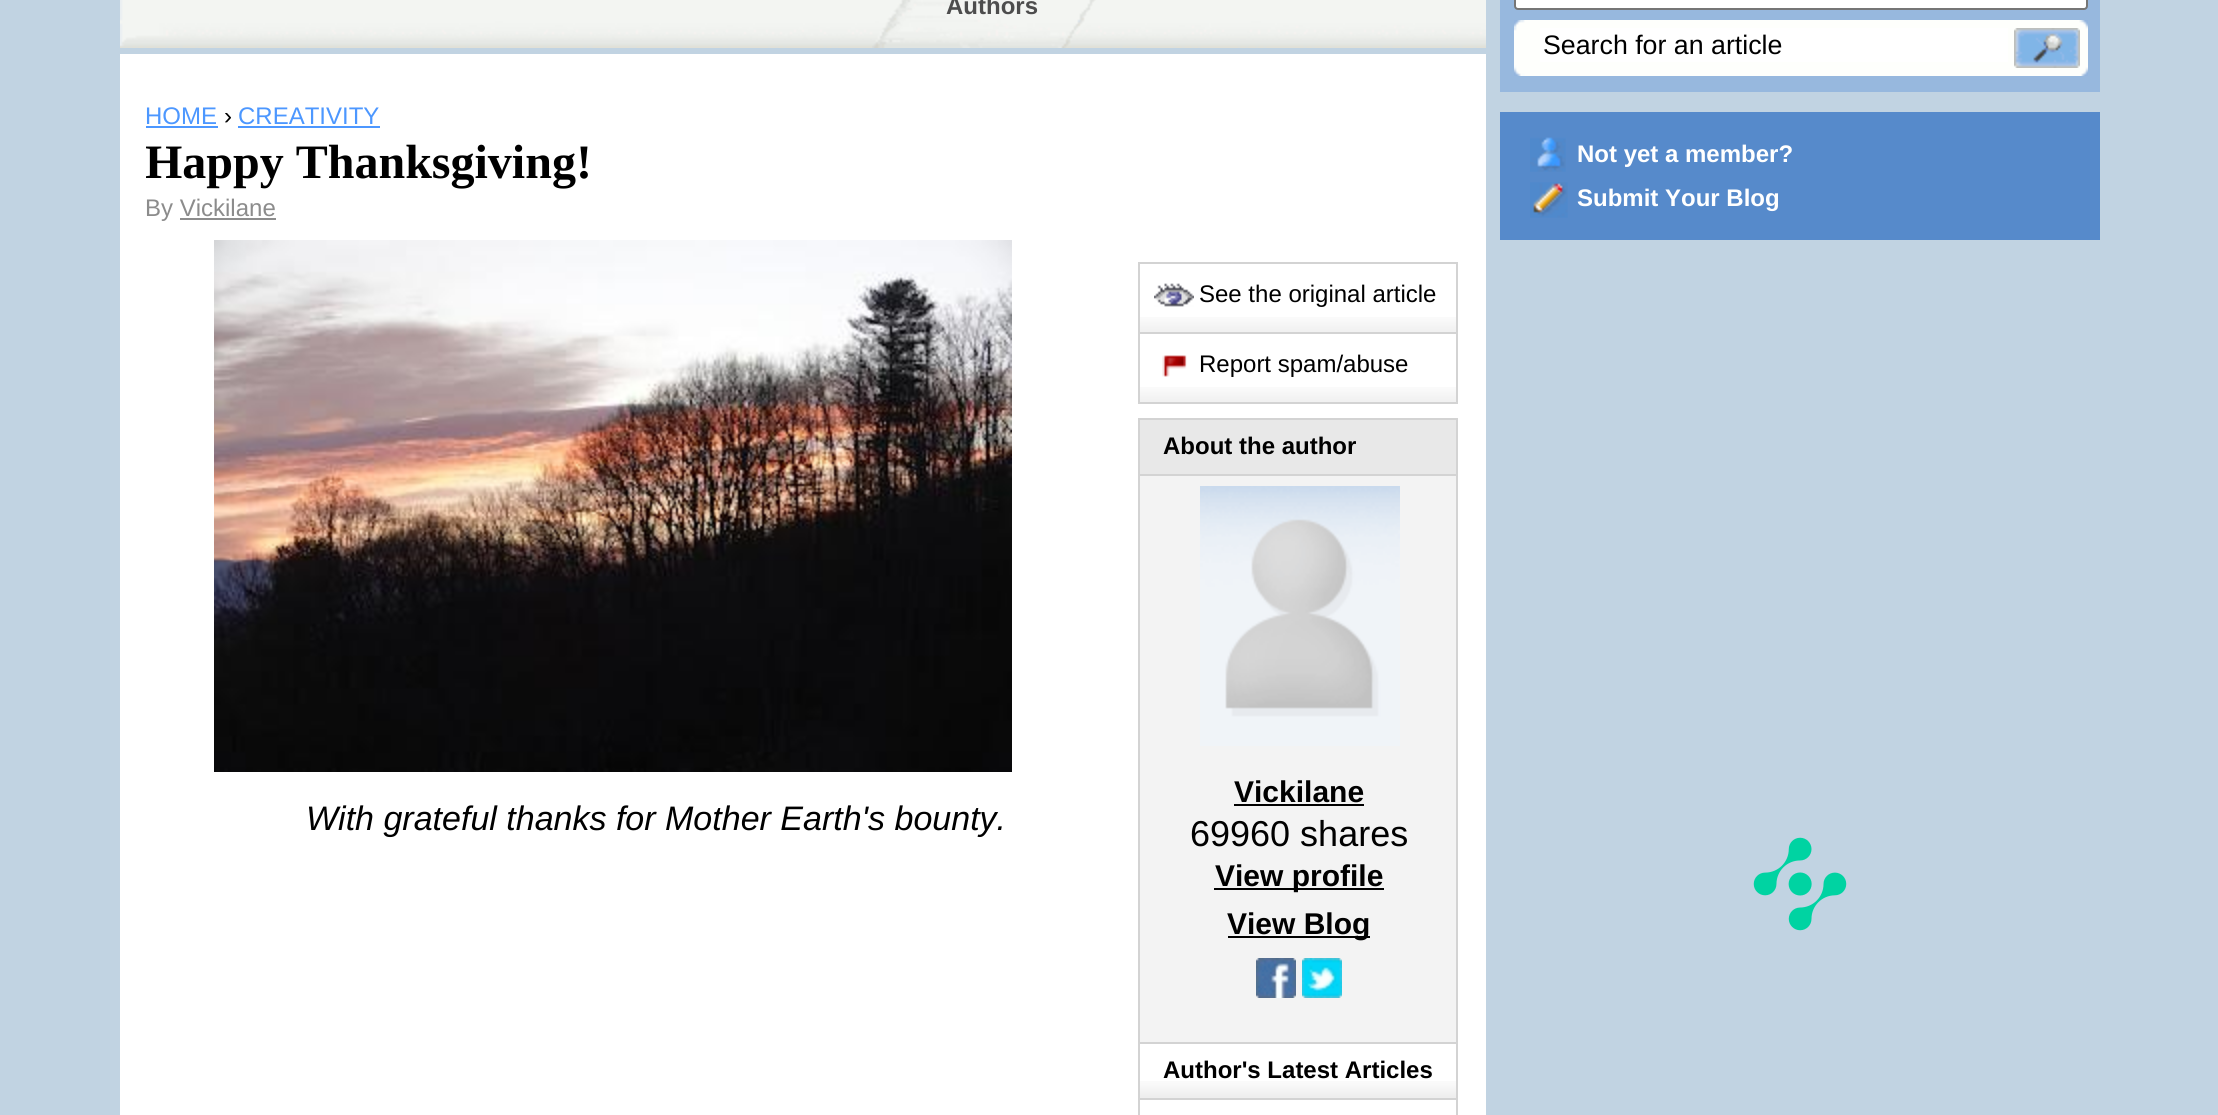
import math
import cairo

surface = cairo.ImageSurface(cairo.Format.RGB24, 2218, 1115)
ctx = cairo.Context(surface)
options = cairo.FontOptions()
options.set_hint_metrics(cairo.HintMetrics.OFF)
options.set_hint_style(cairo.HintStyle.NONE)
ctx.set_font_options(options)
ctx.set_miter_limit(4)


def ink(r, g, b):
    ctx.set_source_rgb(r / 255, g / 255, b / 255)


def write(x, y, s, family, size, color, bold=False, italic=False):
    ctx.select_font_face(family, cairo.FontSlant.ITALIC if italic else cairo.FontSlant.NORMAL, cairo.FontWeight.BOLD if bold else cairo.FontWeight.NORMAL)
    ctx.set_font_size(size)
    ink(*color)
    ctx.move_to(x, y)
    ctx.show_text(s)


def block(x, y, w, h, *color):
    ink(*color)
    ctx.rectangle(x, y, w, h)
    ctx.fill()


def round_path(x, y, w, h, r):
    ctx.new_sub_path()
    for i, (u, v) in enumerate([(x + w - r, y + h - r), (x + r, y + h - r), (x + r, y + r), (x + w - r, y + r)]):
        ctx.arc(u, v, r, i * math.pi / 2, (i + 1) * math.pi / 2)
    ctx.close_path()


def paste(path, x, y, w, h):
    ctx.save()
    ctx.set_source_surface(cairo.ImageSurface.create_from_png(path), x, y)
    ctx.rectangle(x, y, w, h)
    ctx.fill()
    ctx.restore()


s1 = dict(family="Liberation Sans", size=24, color=(77, 77, 77), bold=True)
s2 = dict(family="Liberation Sans", size=24, color=(76, 151, 255))
s3 = dict(family="Liberation Sans", size=24, color=(0, 0, 0))
s4 = dict(family="Liberation Serif", size=48, color=(0, 0, 0), bold=True)
s5 = dict(family="Liberation Sans", size=24, color=(140, 140, 140))
s6 = dict(family="Liberation Sans", size=34, color=(0, 0, 0), italic=True)
s7 = dict(family="Liberation Sans", size=24, color=(0, 0, 0), bold=True)
s8 = dict(family="Liberation Sans", size=30, color=(0, 0, 0), bold=True)
s9 = dict(family="Liberation Sans", size=36, color=(0, 0, 0))
s10 = dict(family="Liberation Sans", size=26.75, color=(0, 0, 0))
s11 = dict(family="Liberation Sans", size=24, color=(255, 255, 255), bold=True)

ink(193, 211, 226)
ctx.paint()
paste("pic1.png", 120, 0, 1366, 48)
paste("pic2.png", 872, 0, 224, 48)
write(946, 14, "Authors", **s1)
block(120, 54, 1366, 1061, 255, 255, 255)
write(145, 124, "HOME", **s2)
block(146, 126, 72, 2, 76, 151, 255)
write(224, 124, "›", **s3)
write(238, 124, "CREATIVITY", **s2)
block(238, 126, 142, 2, 76, 151, 255)
ctx.save()
ctx.rectangle(146, 104, 934, 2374)
ctx.clip()
write(145, 178, "Happy Thanksgiving!", **s4)
ctx.restore()
write(145, 216, "By Vickilane", **s5)
block(180, 218, 96, 2, 140, 140, 140)
paste("pic3.png", 214, 240, 798, 532)
write(306, 830, "With grateful thanks for Mother Earth's bounty.", **s6)
block(1138, 262, 320, 2, 211, 211, 211)
block(1456, 262, 2, 142, 211, 211, 211)
block(1138, 262, 2, 142, 211, 211, 211)
paste("pic4.png", 1140, 317, 316, 15)
block(1140, 332, 316, 2, 211, 211, 211)
paste("pic5.png", 1154, 283, 40, 24)
write(1199, 302, "See the original article", **s3)
paste("pic4.png", 1140, 387, 316, 15)
block(1140, 402, 316, 2, 211, 211, 211)
paste("pic6.png", 1162, 355, 25, 22)
write(1199, 372, "Report spam/abuse", **s3)
ctx.rectangle(1139, 419, 318, 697)
ink(211, 211, 211)
ctx.stroke()
block(1140, 476, 316, 566, 243, 243, 243)
block(1140, 420, 316, 54, 232, 232, 232)
block(1140, 474, 316, 2, 211, 211, 211)
write(1163, 454, "About the author", **s7)
paste("pic7.png", 1200, 486, 200, 260)
write(1234, 802, "Vickilane", **s8)
block(1234, 804, 130, 2, 0, 0, 0)
write(1190, 846, "69960 shares", **s9)
block(1214, 888, 170, 2, 0, 0, 0)
write(1215, 886, "View profile", **s8)
block(1228, 936, 142, 2, 0, 0, 0)
write(1227, 934, "View Blog", **s8)
paste("pic8.png", 1256, 958, 40, 40)
paste("pic9.png", 1302, 958, 40, 40)
paste("pic10.png", 1140, 1081, 316, 17)
block(1140, 1042, 316, 2, 211, 211, 211)
block(1140, 1098, 316, 2, 211, 211, 211)
write(1163, 1078, "Author's Latest Articles", **s7)
block(1500, 0, 600, 92, 151, 184, 222)
ink(255, 255, 255)
round_path(1515, -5, 572, 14, 3)
ctx.fill_preserve()
ink(118, 118, 118)
ctx.stroke()
paste("pic11.png", 1514, 20, 574, 56)
block(1540, 28, 468, 34, 255, 255, 255)
write(1543, 54, "Search for an article", **s10)
paste("pic12.png", 2014, 28, 66, 40)
block(1500, 112, 600, 128, 86, 138, 203)
paste("pic13.png", 1530, 137, 36, 35)
write(1577, 162, "Not yet a member?", **s11)
paste("pic14.png", 1530, 182, 38, 36)
write(1577, 206, "Submit Your Blog", **s11)
paste("pic15.png", 1753, 837, 94, 94)
surface.write_to_png("screenshot.png")
